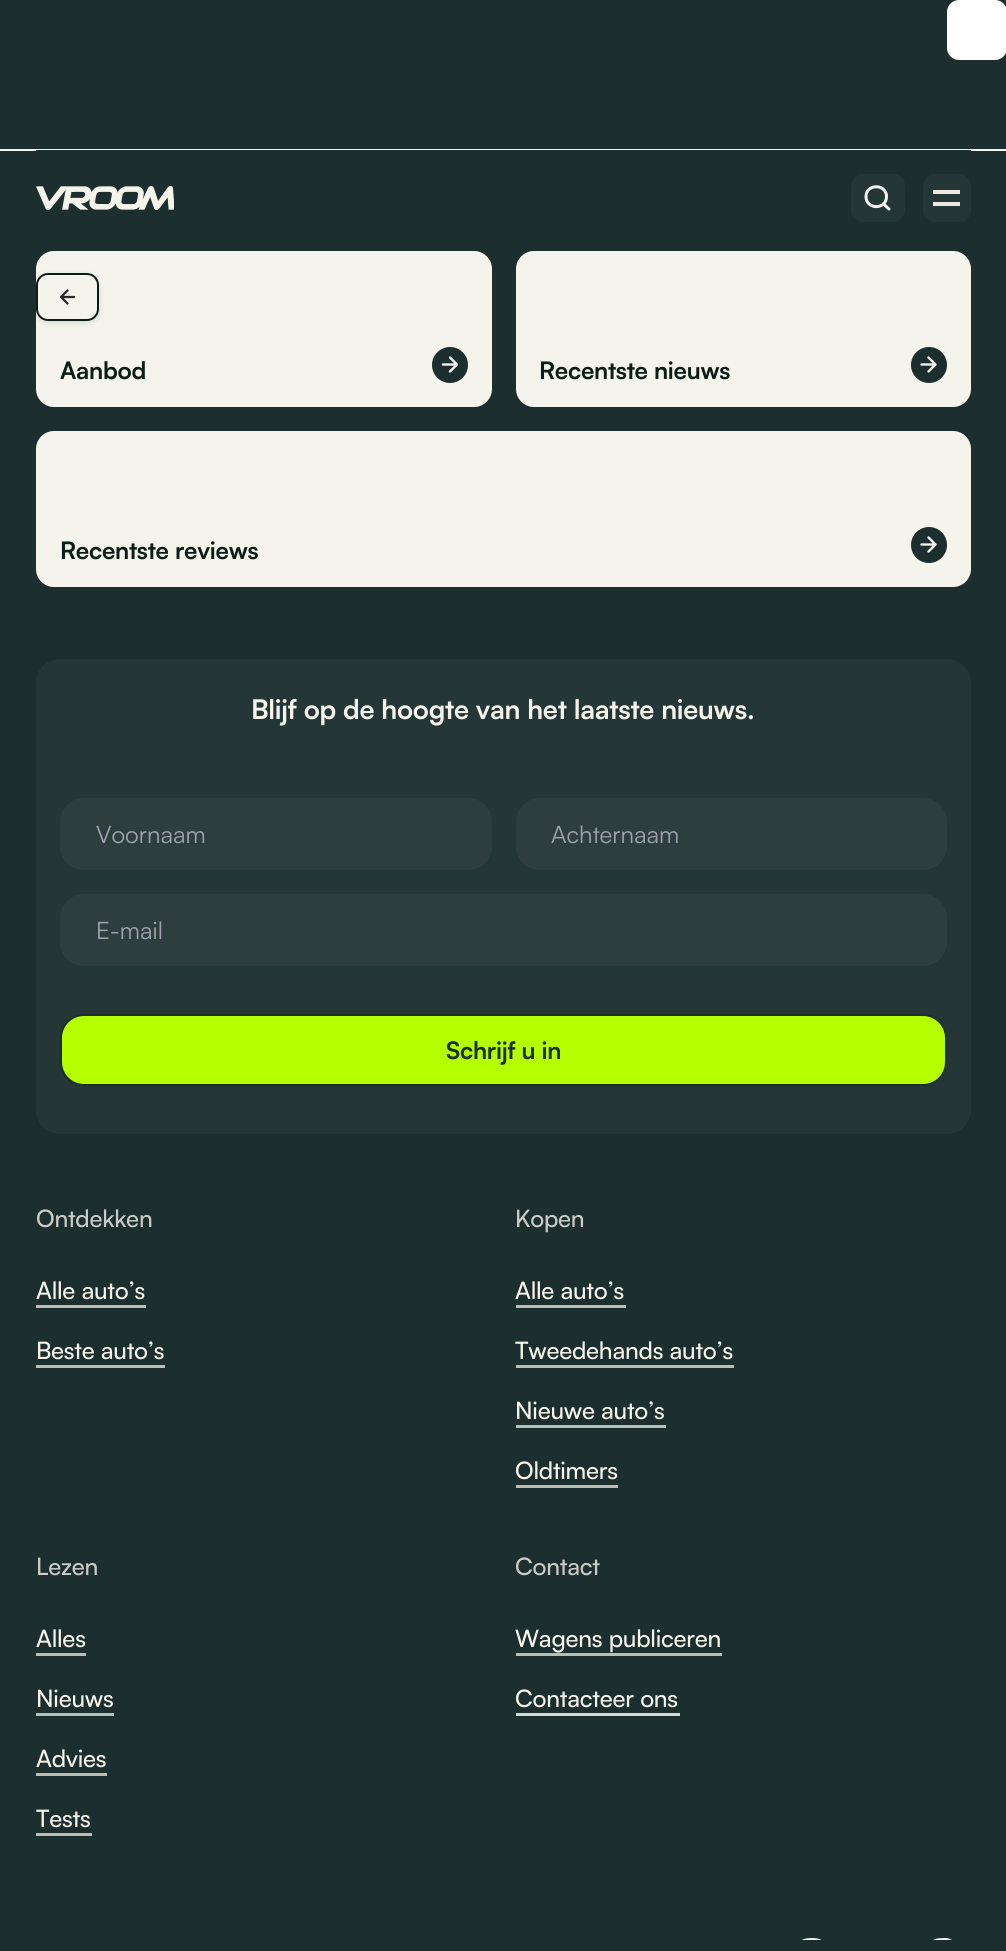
import math
import cairo

surface = cairo.ImageSurface(cairo.Format.RGB24, 1006, 1951)
ctx = cairo.Context(surface)
options = cairo.FontOptions()
options.set_hint_metrics(cairo.HintMetrics.OFF)
options.set_hint_style(cairo.HintStyle.NONE)
ctx.set_font_options(options)
ctx.set_miter_limit(4)


def ink(r, g, b):
    ctx.set_source_rgb(r / 255, g / 255, b / 255)


def write(x, y, s, family, size, color, bold=False, italic=False):
    ctx.select_font_face(family, cairo.FontSlant.ITALIC if italic else cairo.FontSlant.NORMAL, cairo.FontWeight.BOLD if bold else cairo.FontWeight.NORMAL)
    ctx.set_font_size(size)
    ink(*color)
    ctx.move_to(x, y)
    ctx.show_text(s)


def write_spaced(x, y, s, letter, word):
    ctx.move_to(x, y)
    for ch in s:
        ctx.show_text(ch)
        ctx.rel_move_to(letter + word * (ch == ' '), 0)


def block(x, y, w, h, *color):
    ink(*color)
    ctx.rectangle(x, y, w, h)
    ctx.fill()


def round_path(x, y, w, h, r):
    ctx.new_sub_path()
    for i, (u, v) in enumerate([(x + w - r, y + h - r), (x + r, y + h - r), (x + r, y + r), (x + w - r, y + r)]):
        ctx.arc(u, v, r, i * math.pi / 2, (i + 1) * math.pi / 2)
    ctx.close_path()


def blur_box(x, y, w, h, r, blur, alpha):
    ctx.push_group_with_content(cairo.Content.ALPHA)
    ctx.set_operator(cairo.Operator.SOURCE)
    for i in range(15, -16, -2):
        e = blur * i / 6
        if min(w, h) + 2 * e > 0:
            ctx.set_source_rgba(0, 0, 0, alpha * math.erfc((i - 1) / 8.5) / 2)
            round_path(x - e, y - e, w + 2 * e, h + 2 * e, max(0, min(r + e + blur * .6, min(w, h) / 2 + e)))
            ctx.fill()
    ctx.mask(ctx.pop_group())


def paste(path, x, y, w, h):
    ctx.save()
    ctx.set_source_surface(cairo.ImageSurface.create_from_png(path), x, y)
    ctx.rectangle(x, y, w, h)
    ctx.fill()
    ctx.restore()


s1 = dict(family="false", size=24, color=(156, 163, 175))

ink(28, 46, 46)
ctx.paint()
block(0, 149, 1006, 2, 244, 243, 236)
ink(255, 255, 255)
round_path(947, 0, 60, 60, 12)
ctx.fill()
block(36, 150, 935, 1, 28, 46, 46)
paste("pic1.png", 36, 186, 138, 24)
ink(37, 54, 54)
round_path(851, 174, 54, 48, 12)
ctx.fill()
ctx.new_path()
ctx.move_to(889, 209)
ctx.line_to(883.5, 204)
ctx.move_to(886.5, 196.5)
ctx.curve_to(886.5, 210, 866, 210, 866, 196.5)
ctx.curve_to(866, 183.5, 886.5, 183.5, 886.5, 196.5)
ctx.close_path()
ink(244, 244, 244)
ctx.set_line_width(3)
ctx.set_line_cap(cairo.LineCap.ROUND)
ctx.set_line_join(cairo.LineJoin.ROUND)
ctx.stroke()
ink(37, 54, 54)
round_path(923, 174, 48, 48, 12)
ctx.fill()
block(933, 190, 27, 4, 234, 234, 227)
block(933, 202, 27, 4, 234, 234, 227)
ink(244, 243, 236)
round_path(36, 251, 456, 156, 18)
ctx.fill()
ctx.save()
ctx.set_fill_rule(cairo.FillRule.EVEN_ODD)
ctx.new_path()
ctx.move_to(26, 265)
ctx.line_to(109, 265)
ctx.line_to(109, 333)
ctx.line_to(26, 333)
ctx.close_path()
ctx.move_to(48, 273)
ctx.line_to(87, 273)
ctx.curve_to(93.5, 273, 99, 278.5, 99, 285)
ctx.line_to(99, 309)
ctx.curve_to(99, 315.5, 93.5, 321, 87, 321)
ctx.line_to(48, 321)
ctx.curve_to(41.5, 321, 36, 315.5, 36, 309)
ctx.line_to(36, 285)
ctx.curve_to(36, 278.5, 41.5, 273, 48, 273)
ctx.close_path()
ctx.clip()
ink(12, 29, 23)
blur_box(36, 275, 63, 48, 12, 3, 0.12)
ctx.restore()
ctx.set_source_rgba(0.957, 0.953, 0.925, 0.72)
round_path(37, 274, 61, 46, 11)
ctx.fill_preserve()
ink(12, 29, 23)
ctx.set_line_width(2)
ctx.set_line_cap(cairo.LineCap.BUTT)
ctx.set_line_join(cairo.LineJoin.MITER)
ctx.stroke()
ctx.new_path()
ctx.move_to(74, 297)
ctx.line_to(61, 297)
ctx.move_to(61, 297)
ctx.line_to(67.5, 303.5)
ctx.move_to(61, 297)
ctx.line_to(67.5, 290.5)
ink(39, 39, 39)
ctx.set_line_width(2.3)
ctx.set_line_cap(cairo.LineCap.ROUND)
ctx.set_line_join(cairo.LineJoin.ROUND)
ctx.stroke()
ctx.select_font_face("false", cairo.FontSlant.NORMAL, cairo.FontWeight.BOLD)
ctx.set_font_size(24)
ink(12, 29, 23)
write_spaced(60, 379, "Aanbod", -0.25, 0)
ink(28, 46, 46)
ctx.new_path()
ctx.arc(450, 365, 18, 0, 2 * math.pi)
ctx.fill()
ctx.new_path()
ctx.move_to(443, 364.5)
ctx.line_to(457, 364.5)
ctx.move_to(457, 364.5)
ctx.line_to(450, 357.5)
ctx.move_to(457, 364.5)
ctx.line_to(450, 371.5)
ink(244, 244, 244)
ctx.set_line_width(2.4)
ctx.stroke()
ink(244, 243, 236)
round_path(516, 251, 455, 156, 18)
ctx.fill()
ink(12, 29, 23)
write_spaced(539, 379, "Recentste nieuws", -0.25, 0)
ink(28, 46, 46)
ctx.new_path()
ctx.arc(929, 365, 18, 0, 2 * math.pi)
ctx.fill()
ctx.new_path()
ctx.move_to(921.5, 364.5)
ctx.line_to(935.5, 364.5)
ctx.move_to(935.5, 364.5)
ctx.line_to(928.5, 357.5)
ctx.move_to(935.5, 364.5)
ctx.line_to(928.5, 371.5)
ink(244, 244, 244)
ctx.stroke()
ink(244, 243, 236)
round_path(36, 431, 935, 156, 18)
ctx.fill()
ink(12, 29, 23)
write_spaced(60, 559, "Recentste reviews", -0.25, 0)
ink(28, 46, 46)
ctx.new_path()
ctx.arc(929, 545, 18, 0, 2 * math.pi)
ctx.fill()
ctx.new_path()
ctx.move_to(921.5, 544.5)
ctx.line_to(935.5, 544.5)
ctx.move_to(935.5, 544.5)
ctx.line_to(928.5, 537.5)
ctx.move_to(935.5, 544.5)
ctx.line_to(928.5, 551.5)
ink(244, 244, 244)
ctx.stroke()
ink(37, 54, 54)
round_path(36, 659, 935, 475, 24)
ctx.fill()
ctx.set_font_size(27)
ink(244, 243, 236)
write_spaced(251, 719, "Blijf op de hoogte van het laatste nieuws.", -0.25, 0)
ink(46, 62, 62)
round_path(60, 798, 432, 72, 24)
ctx.fill()
write(96, 843, "Voornaam", **s1)
ink(46, 62, 62)
round_path(516, 798, 431, 72, 24)
ctx.fill()
write(551, 843, "Achternaam", **s1)
ink(46, 62, 62)
round_path(60, 894, 887, 72, 24)
ctx.fill()
write(96, 939, "E-mail", **s1)
ink(181, 255, 0)
round_path(61, 1015, 885, 70, 23)
ctx.fill_preserve()
ink(28, 46, 46)
ctx.set_line_width(2)
ctx.set_line_cap(cairo.LineCap.BUTT)
ctx.set_line_join(cairo.LineJoin.MITER)
ctx.stroke()
ctx.select_font_face("false", cairo.FontSlant.NORMAL, cairo.FontWeight.BOLD)
write_spaced(446, 1059, "Schrijf u in", -0.25, 0)
ctx.select_font_face("Satoshi Medium")
ink(201, 204, 198)
write_spaced(36, 1227, "Ontdekken", -0.25, 0)
ink(244, 243, 236)
write_spaced(36, 1299, "Alle auto’s", -0.25, 0)
block(36, 1305, 110, 3, 186, 190, 185)
ink(244, 243, 236)
write_spaced(36, 1359, "Beste auto’s", -0.25, 0)
block(36, 1365, 129, 3, 186, 190, 185)
ink(201, 204, 198)
write_spaced(515, 1227, "Kopen", -0.25, 0)
ink(244, 243, 236)
write_spaced(515, 1299, "Alle auto’s", -0.25, 0)
block(516, 1305, 110, 3, 186, 190, 185)
ink(244, 243, 236)
write_spaced(515, 1359, "Tweedehands auto’s", -0.25, 0)
block(516, 1365, 218, 3, 186, 190, 185)
ink(244, 243, 236)
write_spaced(515, 1419, "Nieuwe auto’s", -0.25, 0)
block(516, 1425, 150, 3, 186, 190, 185)
ink(244, 243, 236)
write_spaced(515, 1479, "Oldtimers", -0.25, 0)
block(516, 1485, 102, 3, 186, 190, 185)
ink(201, 204, 198)
write_spaced(36, 1575, "Lezen", -0.25, 0)
ink(244, 243, 236)
write_spaced(36, 1647, "Alles", -0.25, 0)
block(36, 1653, 50, 3, 186, 190, 185)
ink(244, 243, 236)
write_spaced(36, 1707, "Nieuws", -0.25, 0)
block(36, 1713, 78, 3, 186, 190, 185)
ink(244, 243, 236)
write_spaced(36, 1767, "Advies", -0.25, 0)
block(36, 1773, 71, 3, 186, 190, 185)
ink(244, 243, 236)
write_spaced(36, 1827, "Tests", -0.25, 0)
block(36, 1833, 56, 3, 186, 190, 185)
ink(201, 204, 198)
write_spaced(515, 1575, "Contact", -0.25, 0)
ink(244, 243, 236)
write_spaced(515, 1647, "Wagens publiceren", -0.25, 0)
block(516, 1653, 206, 3, 186, 190, 185)
ink(244, 243, 236)
write_spaced(515, 1707, "Contacteer ons", -0.25, 0)
block(516, 1713, 164, 3, 214, 215, 209)
paste("pic2.png", 801, 1938, 151, 2)
surface.write_to_png("screenshot.png")
